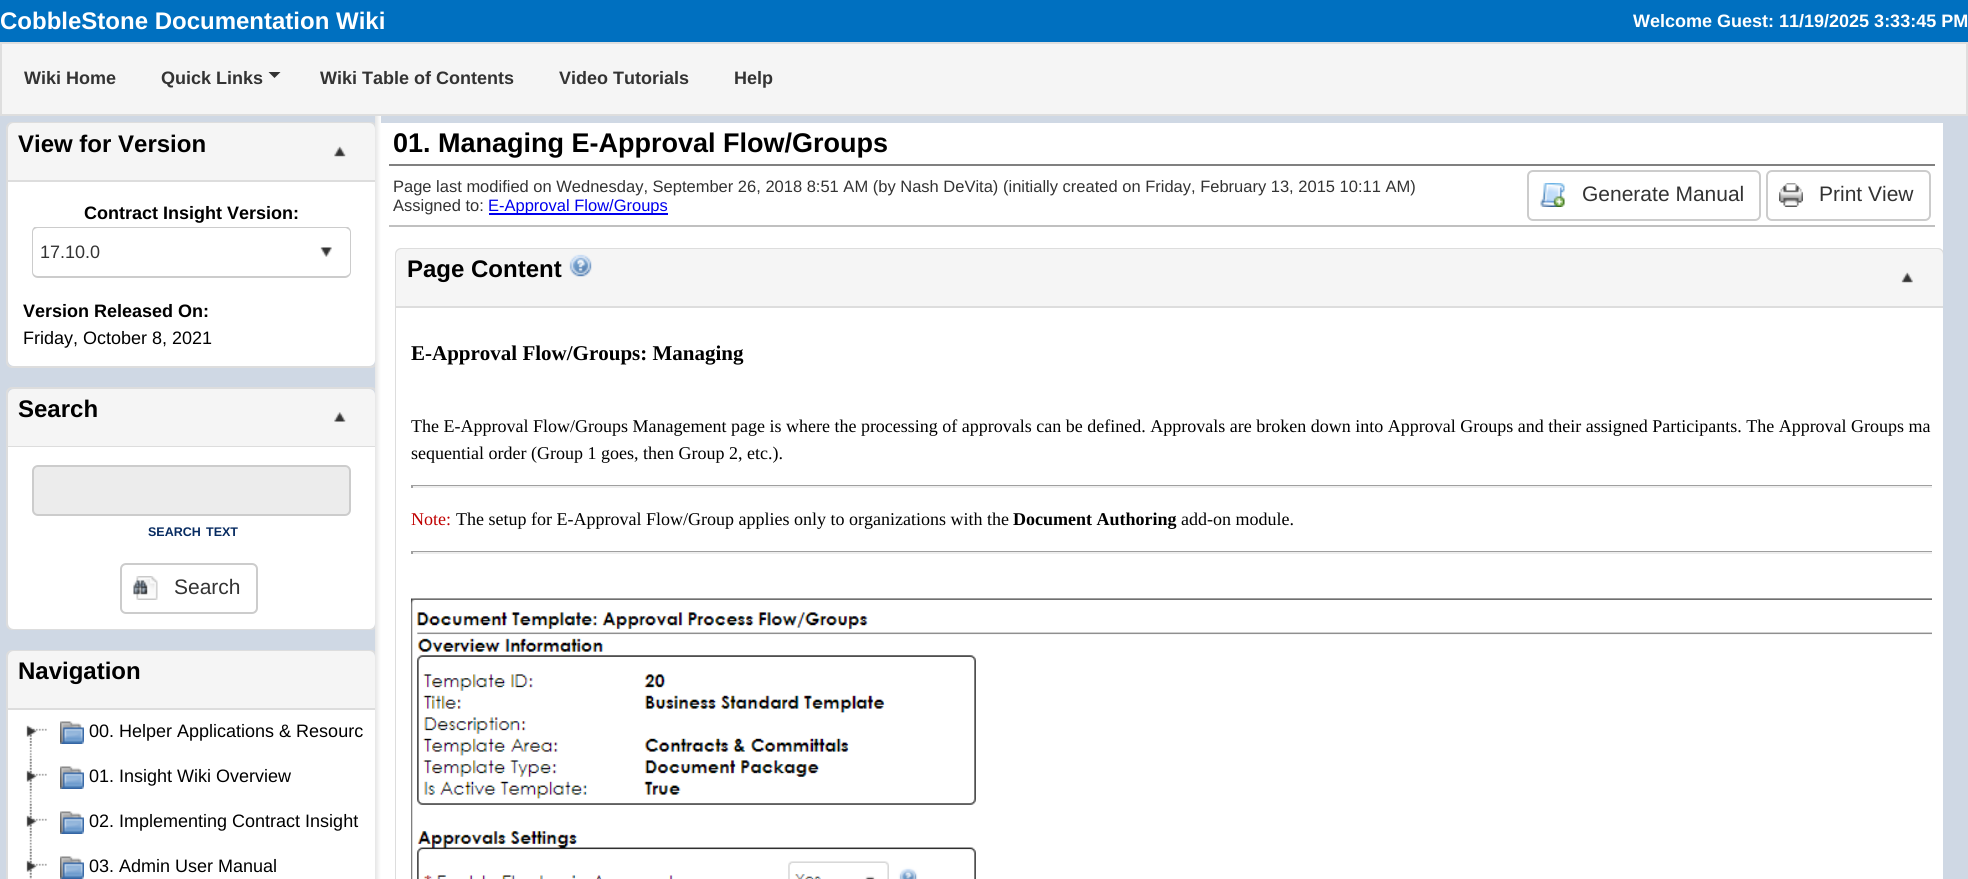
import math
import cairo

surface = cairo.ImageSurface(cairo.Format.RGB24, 1968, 879)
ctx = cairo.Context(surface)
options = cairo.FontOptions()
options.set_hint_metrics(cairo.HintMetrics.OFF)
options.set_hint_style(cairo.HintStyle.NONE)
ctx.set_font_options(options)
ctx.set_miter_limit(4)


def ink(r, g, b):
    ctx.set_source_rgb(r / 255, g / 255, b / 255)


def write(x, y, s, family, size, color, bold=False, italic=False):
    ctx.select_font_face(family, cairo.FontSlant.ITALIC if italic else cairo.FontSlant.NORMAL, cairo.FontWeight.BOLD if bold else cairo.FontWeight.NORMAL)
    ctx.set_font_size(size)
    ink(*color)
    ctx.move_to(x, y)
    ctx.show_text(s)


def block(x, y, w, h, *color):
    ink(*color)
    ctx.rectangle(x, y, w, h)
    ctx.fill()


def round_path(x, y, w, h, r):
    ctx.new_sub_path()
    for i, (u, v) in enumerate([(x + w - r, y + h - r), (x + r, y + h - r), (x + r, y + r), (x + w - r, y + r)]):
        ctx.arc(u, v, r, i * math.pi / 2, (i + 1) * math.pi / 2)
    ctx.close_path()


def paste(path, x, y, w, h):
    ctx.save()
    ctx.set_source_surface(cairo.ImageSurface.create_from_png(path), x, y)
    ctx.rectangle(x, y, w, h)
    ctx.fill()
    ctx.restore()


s1 = dict(family="Liberation Sans", size=24, color=(255, 255, 255), bold=True)
s2 = dict(family="Liberation Sans", size=18, color=(255, 255, 255), bold=True)
s3 = dict(family="Liberation Sans", size=18, color=(51, 51, 51), bold=True)
s4 = dict(family="Liberation Sans", size=24, color=(0, 0, 0), bold=True)
s5 = dict(family="Liberation Sans", size=18, color=(0, 0, 0), bold=True)
s6 = dict(family="Liberation Sans", size=18, color=(51, 51, 51))
s7 = dict(family="Liberation Sans", size=18, color=(0, 0, 0))
s8 = dict(family="Liberation Sans", size=12.5, color=(7, 43, 97), bold=True)
s9 = dict(family="Liberation Sans", size=21, color=(51, 51, 51))
s10 = dict(family="Liberation Sans", size=27, color=(0, 0, 0), bold=True)
s11 = dict(family="Liberation Sans", size=16.5, color=(51, 51, 51))
s12 = dict(family="Liberation Sans", size=16.5, color=(0, 0, 238))
s13 = dict(family="Liberation Serif", size=21, color=(0, 0, 0), bold=True)
s14 = dict(family="Liberation Serif", size=18, color=(0, 0, 0))
s15 = dict(family="Liberation Serif", size=18, color=(192, 0, 0))
s16 = dict(family="Liberation Serif", size=18, color=(0, 0, 0), bold=True)

ink(207, 216, 228)
ctx.paint()
block(0, 0, 1968, 42, 0, 112, 192)
write(0, 29, "CobbleStone Documentation Wiki", **s1)
write(1633, 27, "Welcome Guest: 11/19/2025 3:33:45 PM", **s2)
ink(245, 245, 245)
ctx.rectangle(1, 43, 1966, 72)
ctx.fill_preserve()
ink(222, 222, 222)
ctx.stroke()
write(24, 84, "Wiki Home", **s3)
write(161, 84, "Quick Links", **s3)
ctx.new_path()
ctx.move_to(268.5, 72)
ctx.line_to(280.5, 72)
ctx.line_to(274.5, 78)
ctx.close_path()
ctx.fill()
write(320, 84, "Wiki Table of Contents", **s3)
write(559, 84, "Video Tutorials", **s3)
write(734, 84, "Help", **s3)
gradient = cairo.LinearGradient(381, 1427, 375, 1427)
gradient.add_color_stop_rgba(0, 1, 1, 1, 1)
gradient.add_color_stop_rgba(1, 0.902, 0.902, 0.902, 1)
ctx.set_source(gradient)
ctx.rectangle(375, 116, 6, 763)
ctx.fill()
ctx.save()
ctx.rectangle(0, 116, 375, 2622)
ctx.clip()
round_path(7, 123, 369, 244, 5)
ink(221, 221, 221)
ctx.stroke()
ctx.restore()
ink(245, 245, 245)
ctx.new_path()
ctx.move_to(14, 123)
ctx.line_to(18, 123)
ctx.line_to(18, 182)
ctx.line_to(8, 182)
ctx.line_to(8, 129)
ctx.curve_to(8, 125.5, 10.5, 123, 14, 123)
ctx.close_path()
ctx.fill()
block(8, 180, 357, 2, 221, 221, 221)
ink(245, 245, 245)
ctx.new_path()
ctx.move_to(365, 123)
ctx.line_to(369, 123)
ctx.curve_to(372.5, 123, 375, 125.5, 375, 129)
ctx.line_to(375, 182)
ctx.line_to(365, 182)
ctx.close_path()
ctx.fill()
block(365, 180, 10, 2, 221, 221, 221)
block(18, 123, 347, 57, 245, 245, 245)
write(18, 152, "View for Version", **s4)
paste("pic1.png", 334, 146, 12, 11)
block(8, 182, 367, 174, 255, 255, 255)
write(84, 219, "Contract Insight Version:", **s5)
ctx.save()
ctx.rectangle(32, 227, 319, 51)
ctx.clip()
ink(204, 204, 204)
ctx.set_fill_rule(cairo.FillRule.EVEN_ODD)
ctx.new_path()
ctx.move_to(38, 226)
ctx.line_to(302, 226)
ctx.line_to(302, 278)
ctx.line_to(38, 278)
ctx.curve_to(34, 278, 32, 275, 32, 272)
ctx.line_to(32, 232)
ctx.curve_to(32, 229, 34, 226, 38, 226)
ctx.close_path()
ctx.move_to(38, 228)
ctx.line_to(302, 228)
ctx.line_to(302, 276)
ctx.line_to(38, 276)
ctx.curve_to(35, 276, 33, 274, 33, 272)
ctx.line_to(33, 232)
ctx.curve_to(33, 230, 35, 228, 38, 228)
ctx.close_path()
ctx.fill()
ctx.restore()
write(40, 258, "17.10.0", **s6)
ctx.save()
ctx.rectangle(32, 227, 319, 51)
ctx.clip()
ink(204, 204, 204)
ctx.set_fill_rule(cairo.FillRule.EVEN_ODD)
ctx.new_path()
ctx.move_to(302, 226)
ctx.line_to(345, 226)
ctx.curve_to(348, 226, 351, 229, 351, 232)
ctx.line_to(351, 272)
ctx.curve_to(351, 275, 348, 278, 345, 278)
ctx.line_to(302, 278)
ctx.close_path()
ctx.move_to(302, 228)
ctx.line_to(345, 228)
ctx.curve_to(347, 228, 350, 230, 350, 232)
ctx.line_to(350, 272)
ctx.curve_to(350, 274, 347, 276, 345, 276)
ctx.line_to(302, 276)
ctx.close_path()
ctx.fill()
ctx.restore()
paste("pic2.png", 320, 247, 12, 10)
write(23, 317, "Version Released On:", **s5)
write(23, 344, "Friday, October 8, 2021", **s7)
ink(255, 255, 255)
ctx.new_path()
ctx.move_to(8, 356)
ctx.line_to(18, 356)
ctx.line_to(18, 366)
ctx.line_to(14, 366)
ctx.curve_to(10.5, 366, 8, 363.5, 8, 360)
ctx.close_path()
ctx.fill()
block(18, 356, 347, 10, 255, 255, 255)
ctx.new_path()
ctx.move_to(365, 356)
ctx.line_to(375, 356)
ctx.line_to(375, 360)
ctx.curve_to(375, 363.5, 372.5, 366, 369, 366)
ctx.line_to(365, 366)
ctx.close_path()
ctx.fill()
ctx.save()
ctx.rectangle(0, 116, 375, 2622)
ctx.clip()
round_path(7, 388, 369, 241, 5)
ink(221, 221, 221)
ctx.stroke()
ctx.restore()
ink(245, 245, 245)
ctx.new_path()
ctx.move_to(14, 389)
ctx.line_to(18, 389)
ctx.line_to(18, 447)
ctx.line_to(8, 447)
ctx.line_to(8, 395)
ctx.curve_to(8, 391.5, 10.5, 389, 14, 389)
ctx.close_path()
ctx.fill()
block(8, 446, 357, 1, 221, 221, 221)
ink(245, 245, 245)
ctx.new_path()
ctx.move_to(365, 389)
ctx.line_to(369, 389)
ctx.curve_to(372.5, 389, 375, 391.5, 375, 395)
ctx.line_to(375, 447)
ctx.line_to(365, 447)
ctx.close_path()
ctx.fill()
block(365, 446, 10, 1, 221, 221, 221)
block(18, 389, 347, 57, 245, 245, 245)
write(18, 417, "Search", **s4)
paste("pic3.png", 334, 412, 12, 10)
block(8, 447, 367, 171, 255, 255, 255)
ink(236, 236, 236)
ctx.new_path()
ctx.move_to(38, 467)
ctx.curve_to(35, 467, 33, 469, 33, 472)
ctx.line_to(33, 510)
ctx.curve_to(33, 513, 35, 515, 38, 515)
ctx.line_to(345, 515)
ctx.curve_to(348, 515, 350, 513, 350, 510)
ctx.line_to(350, 472)
ctx.curve_to(350, 469, 348, 467, 345, 467)
ctx.close_path()
ctx.fill()
round_path(33, 466, 317, 49, 5)
ink(204, 204, 204)
ctx.stroke()
write(148, 536, "SEARCH", **s8)
write(206, 536, "TEXT", **s8)
round_path(121, 564, 136, 49, 5)
ink(204, 204, 204)
ctx.stroke()
paste("pic4.png", 133, 576, 25, 24)
write(174, 594, "Search", **s9)
ink(255, 255, 255)
ctx.new_path()
ctx.move_to(8, 618)
ctx.line_to(18, 618)
ctx.line_to(18, 629)
ctx.line_to(14, 629)
ctx.curve_to(10.5, 629, 8, 626.5, 8, 623)
ctx.close_path()
ctx.fill()
block(18, 618, 347, 11, 255, 255, 255)
ctx.new_path()
ctx.move_to(365, 618)
ctx.line_to(375, 618)
ctx.line_to(375, 623)
ctx.curve_to(375, 626.5, 372.5, 629, 369, 629)
ctx.line_to(365, 629)
ctx.close_path()
ctx.fill()
ctx.save()
ctx.rectangle(0, 116, 375, 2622)
ctx.clip()
round_path(7, 651, 369, 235, 5)
ink(221, 221, 221)
ctx.stroke()
ctx.restore()
ink(245, 245, 245)
ctx.new_path()
ctx.move_to(14, 651)
ctx.line_to(18, 651)
ctx.line_to(18, 710)
ctx.line_to(8, 710)
ctx.line_to(8, 657)
ctx.curve_to(8, 653.5, 10.5, 651, 14, 651)
ctx.close_path()
ctx.fill()
block(8, 708, 357, 2, 221, 221, 221)
ink(245, 245, 245)
ctx.new_path()
ctx.move_to(365, 651)
ctx.line_to(369, 651)
ctx.curve_to(372.5, 651, 375, 653.5, 375, 657)
ctx.line_to(375, 710)
ctx.line_to(365, 710)
ctx.close_path()
ctx.fill()
block(365, 708, 10, 2, 221, 221, 221)
block(18, 651, 347, 57, 245, 245, 245)
write(18, 679, "Navigation", **s4)
block(8, 710, 367, 169, 255, 255, 255)
paste("pic5.png", 29, 732, 3, 23)
paste("pic6.png", 29, 728, 18, 18)
paste("pic7.png", 26, 725, 11, 12)
paste("pic8.png", 60, 721, 24, 23)
write(89, 737, "00. Helper Applications & Resourc", **s7)
paste("pic9.png", 29, 754, 3, 46)
paste("pic10.png", 29, 758, 18, 33)
paste("pic11.png", 26, 770, 11, 12)
paste("pic8.png", 60, 766, 24, 23)
write(89, 782, "01. Insight Wiki Overview", **s7)
paste("pic12.png", 29, 799, 3, 46)
paste("pic10.png", 29, 803, 18, 33)
paste("pic11.png", 26, 815, 11, 12)
paste("pic8.png", 60, 811, 24, 23)
write(89, 827, "02. Implementing Contract Insight", **s7)
paste("pic13.png", 29, 844, 3, 35)
paste("pic14.png", 29, 848, 18, 31)
paste("pic11.png", 26, 860, 11, 12)
paste("pic8.png", 60, 856, 24, 23)
write(89, 872, "03. Admin User Manual", **s7)
block(381, 123, 1562, 756, 255, 255, 255)
block(389, 164, 1546, 2, 128, 128, 128)
write(393, 152, "01. Managing E-Approval Flow/Groups", **s10)
block(389, 225, 1546, 2, 192, 192, 192)
write(393, 192, "Page last modified on Wednesday, September 26, 2018 8:51 AM (by Nash DeVita)", **s11)
write(1003, 192, "(initially created on Friday, February 13, 2015 10:11 AM)", **s11)
write(393, 211, "Assigned to:", **s11)
block(489, 213, 179, 2, 0, 0, 238)
write(488, 211, "E-Approval Flow/Groups", **s12)
round_path(1528, 171, 232, 49, 5)
ink(204, 204, 204)
ctx.stroke()
paste("pic15.png", 1540, 183, 25, 24)
write(1582, 201, "Generate Manual", **s9)
round_path(1767, 171, 163, 49, 5)
ink(204, 204, 204)
ctx.stroke()
paste("pic16.png", 1779, 183, 24, 24)
write(1819, 201, "Print View", **s9)
ctx.save()
ctx.rectangle(381, 116, 1562, 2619)
ctx.clip()
round_path(396, 249, 1547, 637, 5)
ink(221, 221, 221)
ctx.stroke()
ctx.restore()
ink(245, 245, 245)
ctx.new_path()
ctx.move_to(402, 249)
ctx.line_to(407, 249)
ctx.line_to(407, 308)
ctx.line_to(396, 308)
ctx.line_to(396, 255)
ctx.curve_to(396, 251.5, 398.5, 249, 402, 249)
ctx.close_path()
ctx.fill()
block(396, 306, 1536, 2, 221, 221, 221)
ink(245, 245, 245)
ctx.new_path()
ctx.move_to(1932, 249)
ctx.line_to(1937, 249)
ctx.curve_to(1940.5, 249, 1943, 251.5, 1943, 255)
ctx.line_to(1943, 308)
ctx.line_to(1932, 308)
ctx.close_path()
ctx.fill()
block(1932, 306, 11, 2, 221, 221, 221)
block(407, 249, 1525, 57, 245, 245, 245)
write(407, 277, "Page Content", **s4)
paste("pic17.png", 569, 254, 23, 23)
paste("pic18.png", 1901, 272, 12, 11)
block(396, 308, 1, 571, 255, 255, 255)
write(411, 360, "E-Approval Flow/Groups: Managing", **s13)
write(411, 432, "The E-Approval Flow/Groups Management page is where the processing of approvals can be defined. Approvals are broken down into Approval Groups and their assigned Participants. The Approval Groups ma", **s14)
write(411, 459, "sequential order (Group 1 goes, then Group 2, etc.).", **s14)
block(411, 485, 1521, 1, 159, 159, 159)
block(411, 486, 1521, 2, 238, 238, 238)
block(411, 485, 2, 3, 159, 159, 159)
write(411, 525, "Note:", **s15)
write(456, 525, "The setup for E-Approval Flow/Group applies only to organizations with the", **s14)
write(1013, 525, "Document Authoring", **s16)
write(1181, 525, "add-on module.", **s14)
block(411, 551, 1521, 1, 159, 159, 159)
block(411, 552, 1521, 2, 238, 238, 238)
block(411, 551, 2, 3, 159, 159, 159)
paste("pic19.png", 411, 598, 1521, 281)
block(1942, 308, 1, 571, 255, 255, 255)
surface.write_to_png("screenshot.png")
